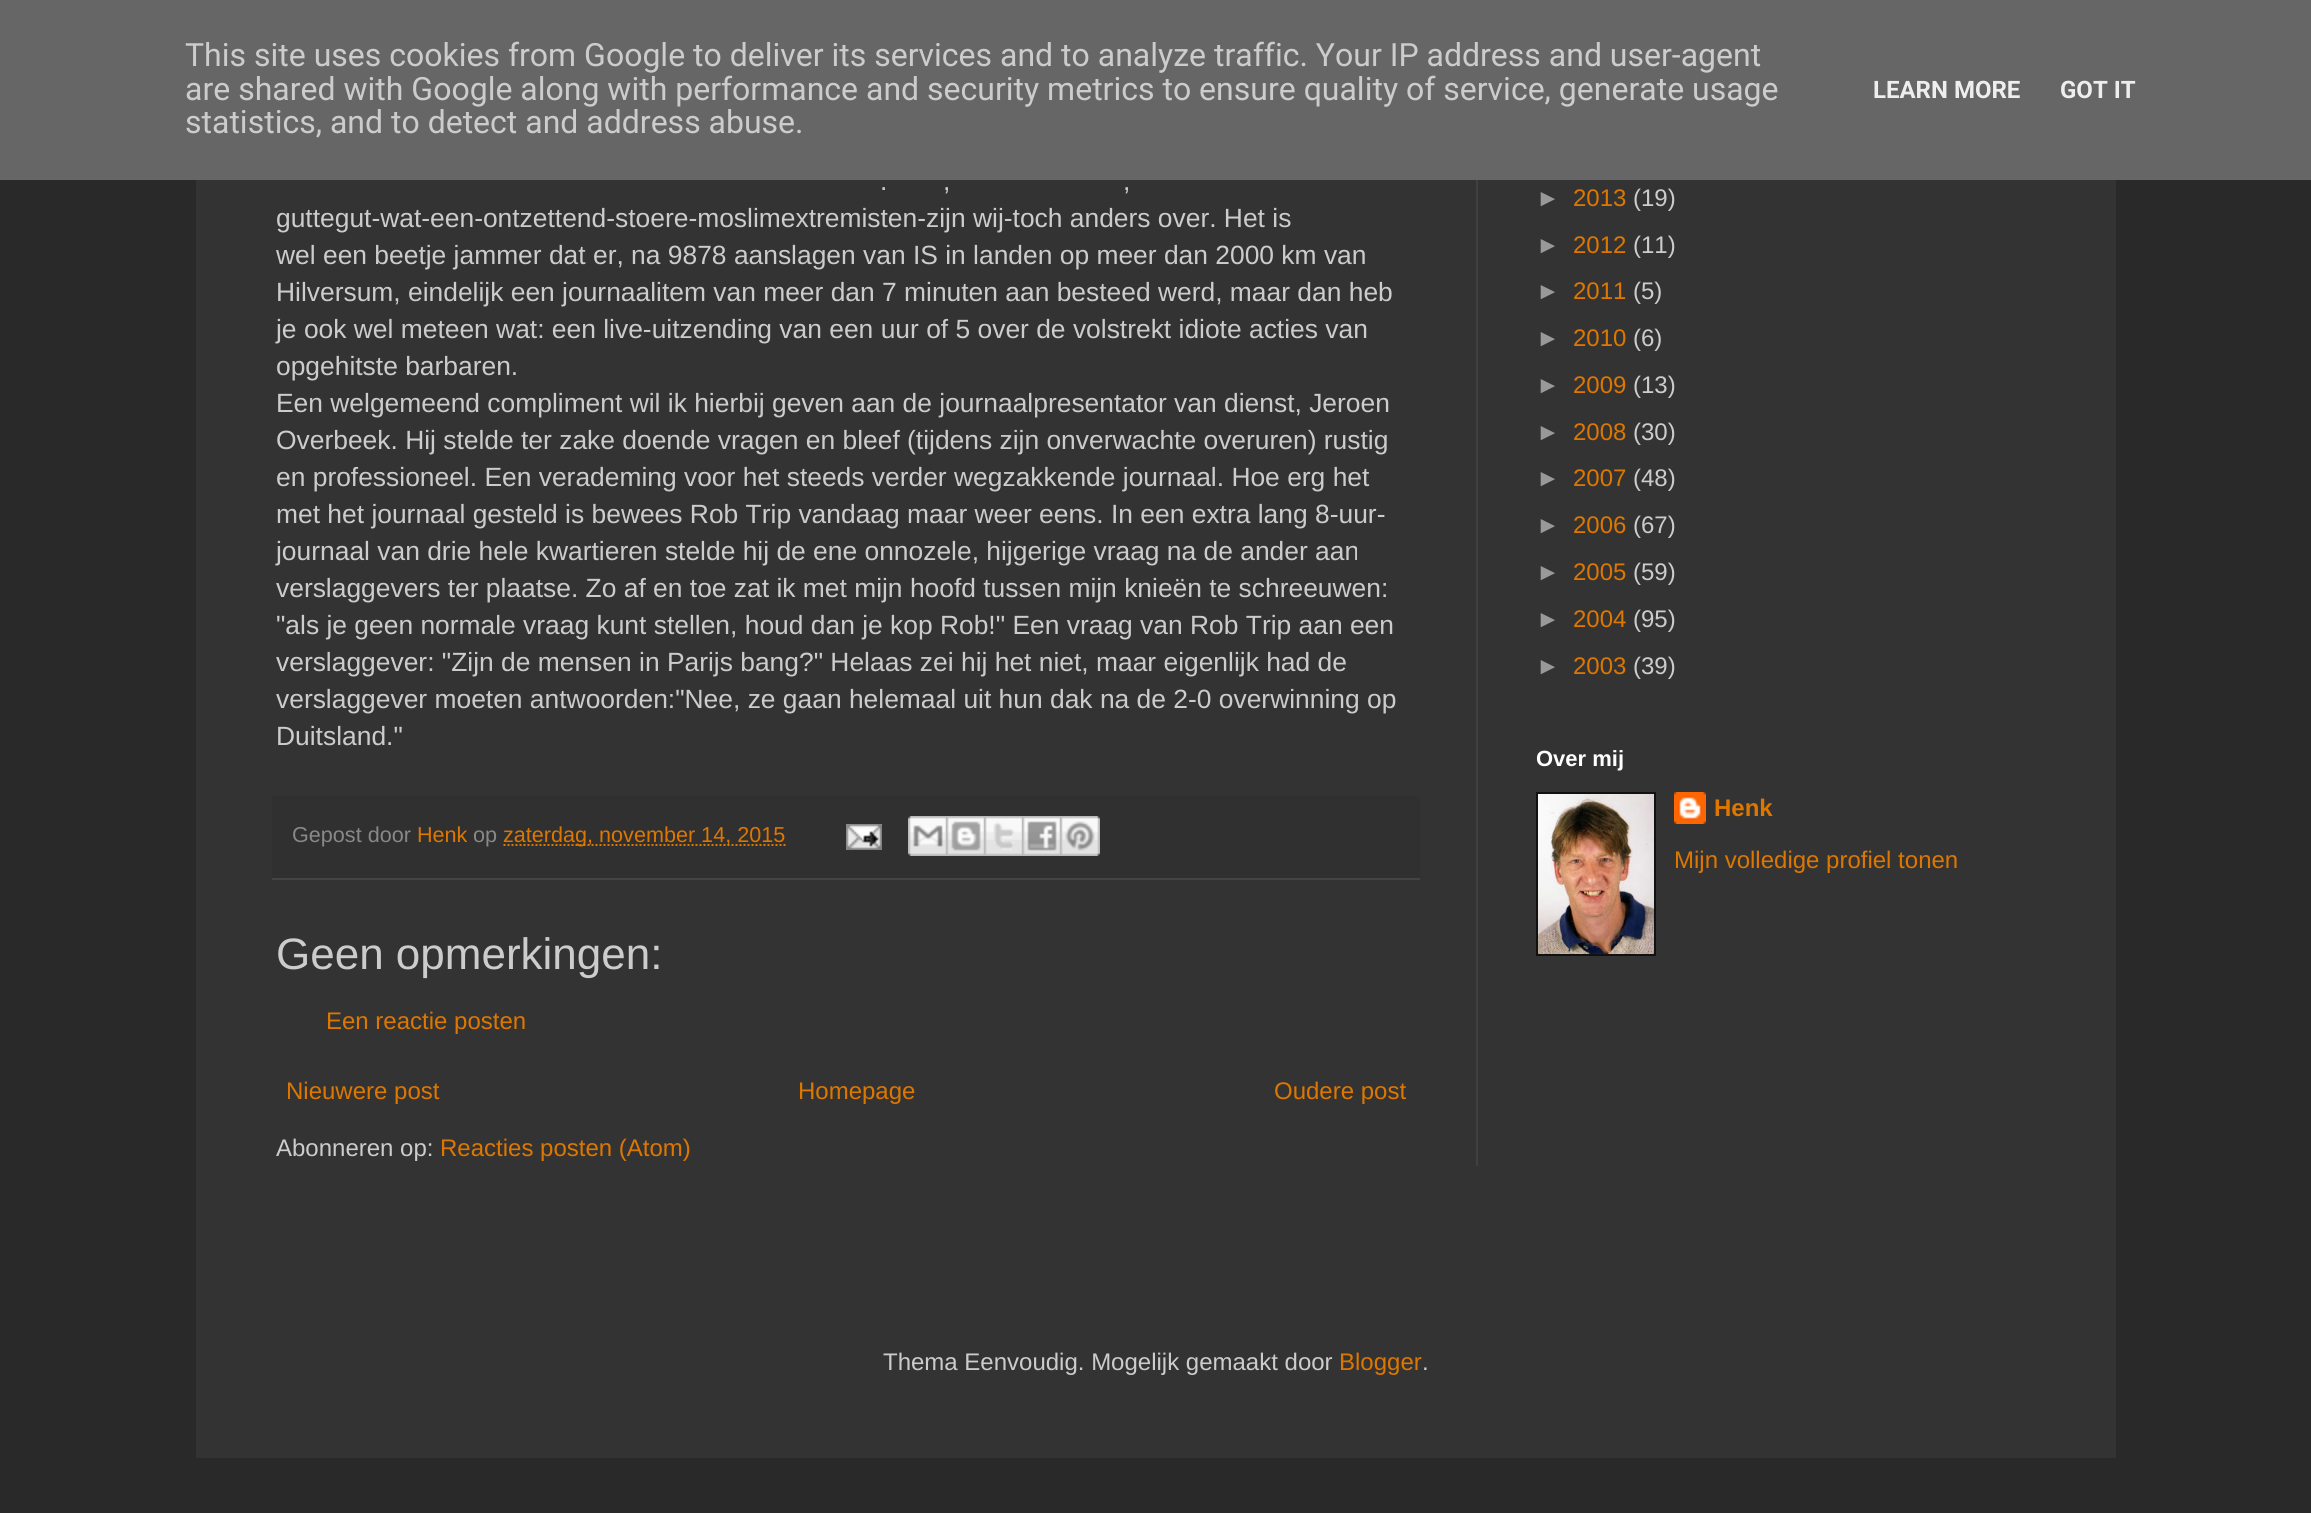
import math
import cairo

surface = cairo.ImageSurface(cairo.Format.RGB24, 2311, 1513)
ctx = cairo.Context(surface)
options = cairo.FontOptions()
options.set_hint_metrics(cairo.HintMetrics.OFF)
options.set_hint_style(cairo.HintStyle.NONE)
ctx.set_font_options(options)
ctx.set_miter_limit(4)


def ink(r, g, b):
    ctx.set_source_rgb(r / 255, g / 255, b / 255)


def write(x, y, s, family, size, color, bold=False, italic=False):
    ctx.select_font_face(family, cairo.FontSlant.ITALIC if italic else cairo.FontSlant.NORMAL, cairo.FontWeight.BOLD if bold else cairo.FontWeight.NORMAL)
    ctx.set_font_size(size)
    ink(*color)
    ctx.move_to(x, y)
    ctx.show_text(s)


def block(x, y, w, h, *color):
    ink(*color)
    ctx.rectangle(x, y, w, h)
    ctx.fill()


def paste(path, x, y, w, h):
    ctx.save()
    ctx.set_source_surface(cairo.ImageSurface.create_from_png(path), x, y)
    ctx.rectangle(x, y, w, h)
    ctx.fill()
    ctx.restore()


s1 = dict(family="Roboto", size=32, color=(204, 204, 204))
s2 = dict(family="Roboto", size=24, color=(238, 238, 238), bold=True)
s3 = dict(family="Liberation Sans", size=26.4, color=(204, 204, 204))
s4 = dict(family="Liberation Sans", size=21.6, color=(136, 136, 136))
s5 = dict(family="Liberation Sans", size=21.6, color=(221, 119, 0))
s6 = dict(family="Liberation Sans", size=44, color=(204, 204, 204))
s7 = dict(family="Liberation Sans", size=24, color=(221, 119, 0))
s8 = dict(family="Liberation Sans", size=24, color=(204, 204, 204))
s9 = dict(family="Liberation Sans", size=24, color=(153, 153, 153))
s10 = dict(family="Liberation Sans", size=22, color=(255, 255, 255), bold=True)
s11 = dict(family="Liberation Sans", size=24, color=(221, 119, 0), bold=True)

ink(41, 41, 41)
ctx.paint()
block(0, 0, 2311, 180, 102, 102, 102)
write(185, 66, "This site uses cookies from Google to deliver its services and to analyze traffic. Your IP address and user-agent", **s1)
write(185, 100, "are shared with Google along with performance and security metrics to ensure quality of service, generate usage", **s1)
write(185, 133, "statistics, and to detect and address abuse.", **s1)
write(1873, 98, "LEARN MORE", **s2)
write(2060, 98, "GOT IT", **s2)
block(196, 180, 1920, 1278, 51, 51, 51)
block(1476, 180, 2, 986, 64, 64, 64)
write(880, 190, ".", **s3)
write(943, 190, ",", **s3)
write(1123, 190, ",", **s3)
write(276, 227, "guttegut-wat-een-ontzettend-stoere-moslimextremisten-zijn wij-toch anders over. Het is", **s3)
write(276, 264, "wel een beetje jammer dat er, na 9878 aanslagen van IS in landen op meer dan 2000 km van", **s3)
write(276, 301, "Hilversum, eindelijk een journaalitem van meer dan 7 minuten aan besteed werd, maar dan heb", **s3)
write(276, 338, "je ook wel meteen wat: een live-uitzending van een uur of 5 over de volstrekt idiote acties van", **s3)
write(276, 375, "opgehitste barbaren.", **s3)
write(276, 412, "Een welgemeend compliment wil ik hierbij geven aan de journaalpresentator van dienst, Jeroen", **s3)
write(276, 449, "Overbeek. Hij stelde ter zake doende vragen en bleef (tijdens zijn onverwachte overuren) rustig", **s3)
write(276, 486, "en professioneel. Een verademing voor het steeds verder wegzakkende journaal. Hoe erg het", **s3)
write(276, 523, "met het journaal gesteld is bewees Rob Trip vandaag maar weer eens. In een extra lang 8-uur-", **s3)
write(276, 560, "journaal van drie hele kwartieren stelde hij de ene onnozele, hijgerige vraag na de ander aan", **s3)
write(276, 597, "verslaggevers ter plaatse. Zo af en toe zat ik met mijn hoofd tussen mijn knieën te schreeuwen:", **s3)
write(276, 634, "\"als je geen normale vraag kunt stellen, houd dan je kop Rob!\" Een vraag van Rob Trip aan een", **s3)
write(276, 671, "verslaggever: \"Zijn de mensen in Parijs bang?\" Helaas zei hij het niet, maar eigenlijk had de", **s3)
write(276, 708, "verslaggever moeten antwoorden:\"Nee, ze gaan helemaal uit hun dak na de 2-0 overwinning op", **s3)
write(276, 745, "Duitsland.\"", **s3)
block(272, 796, 1148, 82, 48, 48, 48)
block(272, 878, 1148, 2, 68, 68, 68)
write(292, 842, "Gepost door", **s4)
write(417, 842, "Henk", **s5)
write(473, 842, "op", **s4)
ctx.new_path()
ctx.move_to(503.5, 845)
ctx.line_to(785.5, 845)
ink(221, 119, 0)
ctx.set_dash([2, 2])
ctx.stroke()
write(503, 842, "zaterdag, november 14, 2015", **s5)
paste("pic1.png", 846, 824, 36, 26)
paste("pic2.png", 908, 816, 38, 40)
paste("pic3.png", 946, 816, 38, 40)
paste("pic4.png", 984, 816, 38, 40)
paste("pic5.png", 1022, 816, 38, 40)
paste("pic6.png", 1060, 816, 40, 40)
write(276, 969, "Geen opmerkingen:", **s6)
write(326, 1029, "Een reactie posten", **s7)
write(286, 1099, "Nieuwere post", **s7)
write(798, 1099, "Homepage", **s7)
write(1274, 1099, "Oudere post", **s7)
write(276, 1156, "Abonneren op:", **s8)
write(440, 1156, "Reacties posten (Atom)", **s7)
write(1536, 206, "►", **s9)
write(1573, 206, "2013", **s7)
write(1633, 206, "(19)", **s8)
write(1536, 253, "►", **s9)
write(1573, 253, "2012", **s7)
write(1633, 253, "(11)", **s8)
write(1536, 299, "►", **s9)
write(1573, 299, "2011", **s7)
write(1633, 299, "(5)", **s8)
write(1536, 346, "►", **s9)
write(1573, 346, "2010", **s7)
write(1633, 346, "(6)", **s8)
write(1536, 393, "►", **s9)
write(1573, 393, "2009", **s7)
write(1633, 393, "(13)", **s8)
write(1536, 440, "►", **s9)
write(1573, 440, "2008", **s7)
write(1633, 440, "(30)", **s8)
write(1536, 486, "►", **s9)
write(1573, 486, "2007", **s7)
write(1633, 486, "(48)", **s8)
write(1536, 533, "►", **s9)
write(1573, 533, "2006", **s7)
write(1633, 533, "(67)", **s8)
write(1536, 580, "►", **s9)
write(1573, 580, "2005", **s7)
write(1633, 580, "(59)", **s8)
write(1536, 627, "►", **s9)
write(1573, 627, "2004", **s7)
write(1633, 627, "(95)", **s8)
write(1536, 674, "►", **s9)
write(1573, 674, "2003", **s7)
write(1633, 674, "(39)", **s8)
write(1536, 766, "Over mij", **s10)
block(1536, 792, 120, 164, 17, 17, 17)
paste("pic7.png", 1538, 794, 116, 160)
paste("pic8.png", 1674, 792, 32, 32)
write(1714, 816, "Henk", **s11)
write(1674, 868, "Mijn volledige profiel tonen", **s7)
write(883, 1370, "Thema Eenvoudig. Mogelijk gemaakt door", **s8)
write(1339, 1370, "Blogger", **s7)
write(1422, 1370, ".", **s8)
surface.write_to_png("screenshot.png")
